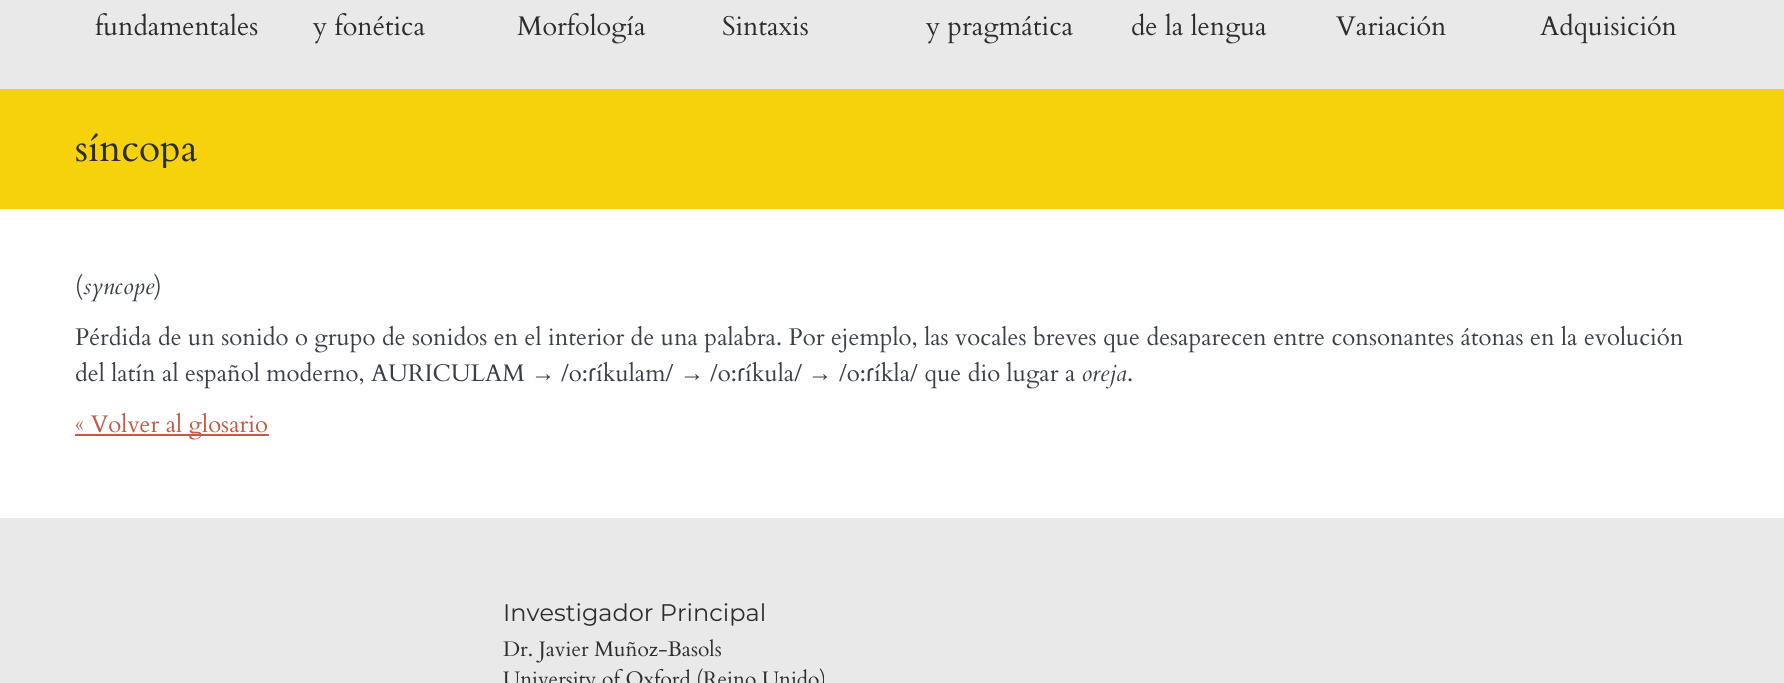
import math
import cairo

surface = cairo.ImageSurface(cairo.Format.RGB24, 1784, 683)
ctx = cairo.Context(surface)
options = cairo.FontOptions()
options.set_hint_metrics(cairo.HintMetrics.OFF)
options.set_hint_style(cairo.HintStyle.NONE)
ctx.set_font_options(options)
ctx.set_miter_limit(4)


def ink(r, g, b):
    ctx.set_source_rgb(r / 255, g / 255, b / 255)


def write(x, y, s, family, size, color, bold=False, italic=False):
    ctx.select_font_face(family, cairo.FontSlant.ITALIC if italic else cairo.FontSlant.NORMAL, cairo.FontWeight.BOLD if bold else cairo.FontWeight.NORMAL)
    ctx.set_font_size(size)
    ink(*color)
    ctx.move_to(x, y)
    ctx.show_text(s)


def block(x, y, w, h, *color):
    ink(*color)
    ctx.rectangle(x, y, w, h)
    ctx.fill()


s1 = dict(family="Cardo", size=27, color=(45, 45, 45))
s2 = dict(family="Cardo", size=39, color=(45, 45, 45))
s3 = dict(family="Cardo", size=24, color=(59, 63, 74))
s4 = dict(family="Cardo", size=24, color=(59, 63, 74), italic=True)
s5 = dict(family="Liberation Sans", size=24, color=(59, 63, 74))
s6 = dict(family="Cardo", size=24, color=(198, 89, 68))
s7 = dict(family="Montserrat", size=24, color=(45, 45, 45))
s8 = dict(family="Cardo", size=21, color=(45, 45, 45))

ink(255, 255, 255)
ctx.paint()
block(0, 0, 1784, 89, 233, 233, 233)
write(95, 35, "fundamentales", **s1)
write(313, 35, "y fonética", **s1)
write(517, 35, "Morfología", **s1)
write(722, 35, "Sintaxis", **s1)
write(926, 35, "y pragmática", **s1)
write(1131, 35, "de la lengua", **s1)
write(1336, 35, "Variación", **s1)
write(1540, 35, "Adquisición", **s1)
block(0, 89, 1784, 120, 246, 210, 12)
ctx.save()
ctx.rectangle(75, 129, 123, 39)
ctx.clip()
write(75, 161, "síncopa", **s2)
ctx.restore()
write(75, 294, "(", **s3)
write(83, 294, "syncope", **s4)
write(154, 294, ")", **s3)
write(75, 345, "Pérdida de un sonido o grupo de sonidos en el interior de una palabra. Por ejemplo, las vocales breves que desaparecen entre consonantes átonas en la evolución", **s3)
write(75, 381, "del latín al español moderno, AURICULAM", **s3)
write(531, 381, "→", **s5)
write(561, 381, "/o:", **s3)
write(588, 381, "ɾ", **s5)
write(596, 381, "íkulam/", **s3)
write(680, 381, "→", **s5)
write(710, 381, "/o:", **s3)
write(737, 381, "ɾ", **s5)
write(745, 381, "íkula/", **s3)
write(808, 381, "→", **s5)
write(839, 381, "/o:", **s3)
write(866, 381, "ɾ", **s5)
write(874, 381, "íkla/ que dio lugar a", **s3)
write(1081, 381, "oreja", **s4)
write(1127, 381, ".", **s3)
block(75, 434, 194, 2, 198, 89, 68)
write(75, 432, "« Volver al glosario", **s6)
block(0, 518, 1784, 165, 233, 233, 233)
write(503, 621, "Investigador Principal", **s7)
write(503, 656, "Dr. Javier Muñoz-Basols", **s8)
write(503, 686, "University of Oxford (Reino Unido)", **s8)
surface.write_to_png("screenshot.png")
